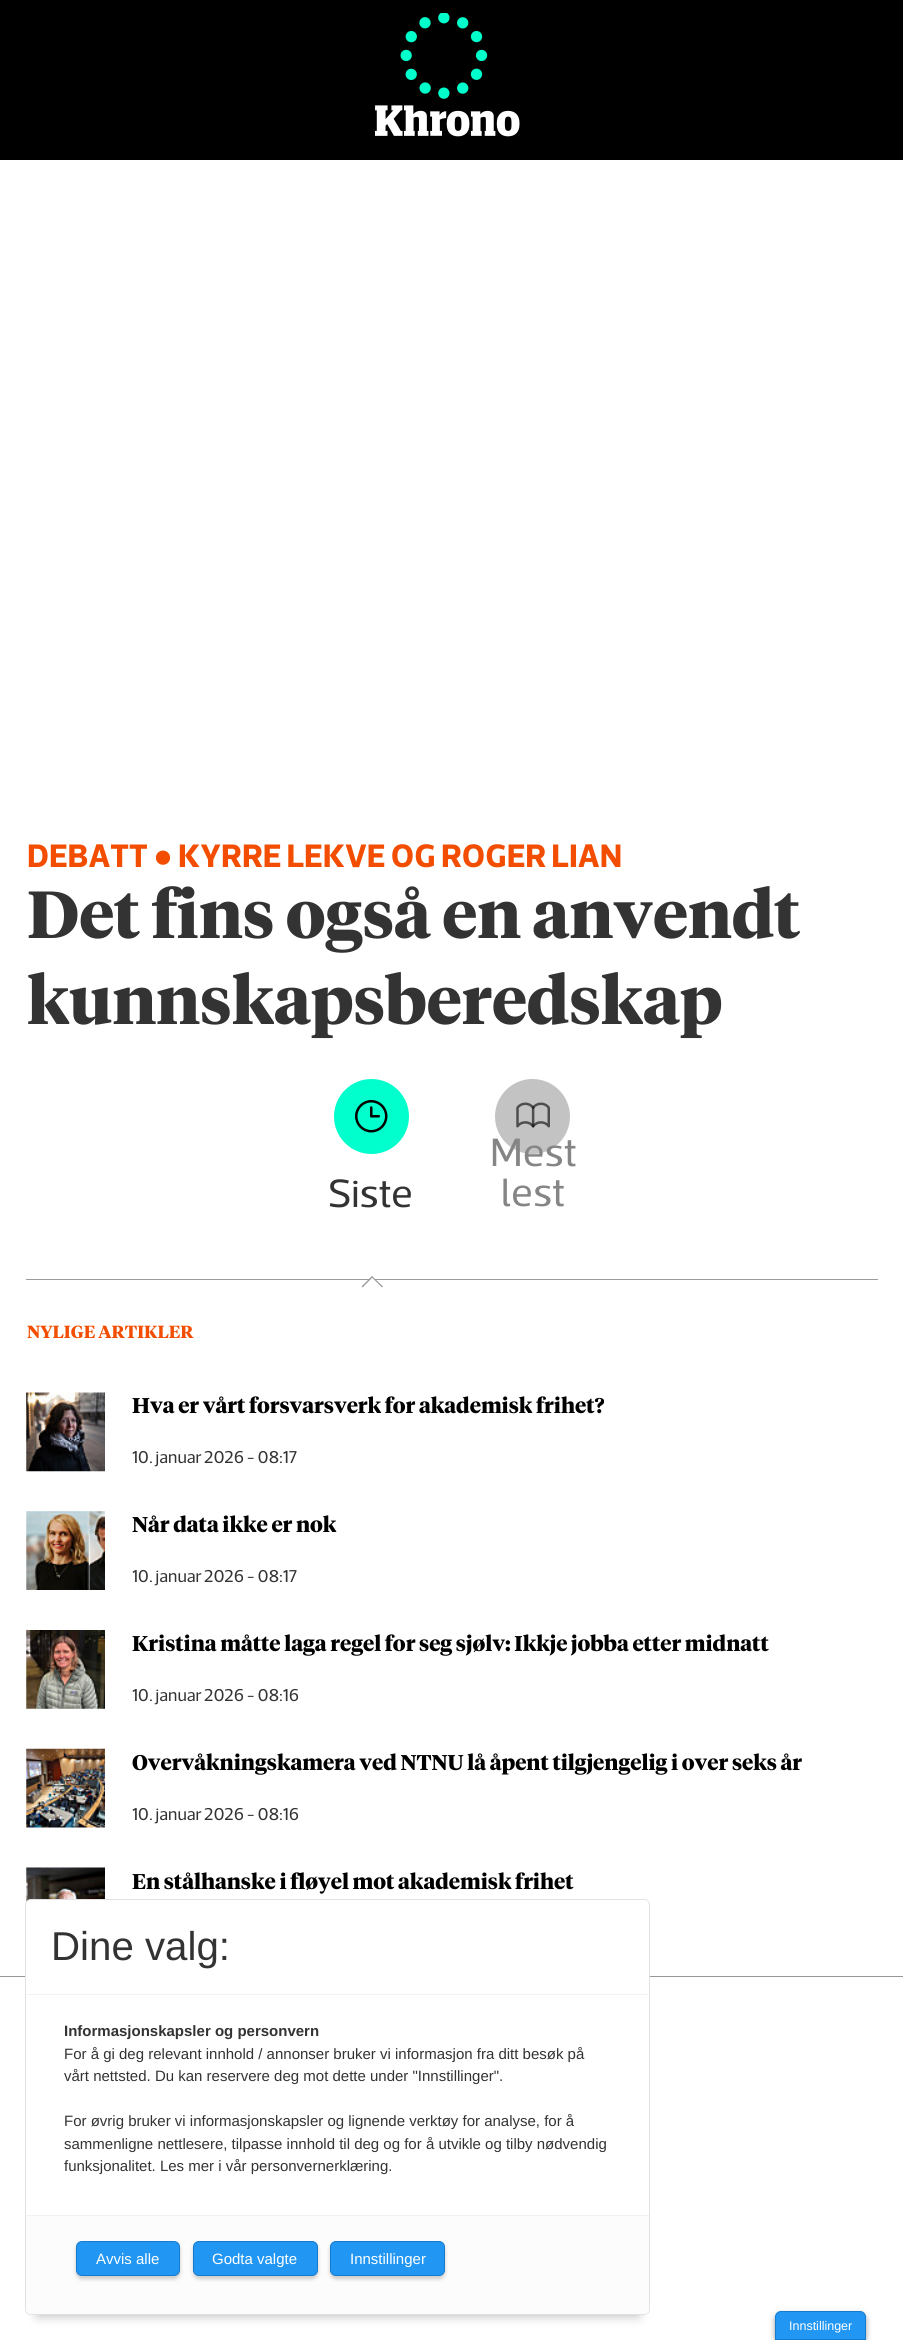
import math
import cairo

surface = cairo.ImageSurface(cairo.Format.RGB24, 903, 2340)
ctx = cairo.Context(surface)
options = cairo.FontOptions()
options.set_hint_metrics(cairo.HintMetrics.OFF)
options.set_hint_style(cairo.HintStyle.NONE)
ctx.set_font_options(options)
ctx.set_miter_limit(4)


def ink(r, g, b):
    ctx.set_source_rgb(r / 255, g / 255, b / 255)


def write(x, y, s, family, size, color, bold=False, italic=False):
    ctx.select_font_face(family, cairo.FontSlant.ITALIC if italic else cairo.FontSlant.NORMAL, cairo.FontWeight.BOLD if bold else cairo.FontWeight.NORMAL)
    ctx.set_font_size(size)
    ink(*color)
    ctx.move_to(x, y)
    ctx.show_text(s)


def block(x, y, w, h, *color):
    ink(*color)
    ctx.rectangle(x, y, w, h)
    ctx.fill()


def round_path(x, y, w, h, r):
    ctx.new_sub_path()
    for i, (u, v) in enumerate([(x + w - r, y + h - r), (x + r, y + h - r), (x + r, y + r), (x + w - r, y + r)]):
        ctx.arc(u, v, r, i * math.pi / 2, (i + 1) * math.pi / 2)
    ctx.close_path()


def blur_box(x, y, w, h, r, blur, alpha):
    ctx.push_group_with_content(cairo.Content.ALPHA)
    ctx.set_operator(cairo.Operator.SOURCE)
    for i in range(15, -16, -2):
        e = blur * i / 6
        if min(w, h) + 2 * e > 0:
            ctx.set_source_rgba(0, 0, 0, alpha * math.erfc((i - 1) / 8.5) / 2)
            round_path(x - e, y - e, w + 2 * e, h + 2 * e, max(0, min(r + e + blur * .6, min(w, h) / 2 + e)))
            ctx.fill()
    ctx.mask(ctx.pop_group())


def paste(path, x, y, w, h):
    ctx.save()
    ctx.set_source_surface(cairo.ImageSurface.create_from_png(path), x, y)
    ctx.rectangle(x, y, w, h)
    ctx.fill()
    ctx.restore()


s1 = dict(family="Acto", size=33.1, color=(242, 77, 0), bold=True)
s2 = dict(family="Liberation Sans", size=33.1, color=(242, 77, 0), bold=True)
s3 = dict(family="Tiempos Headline", size=66.25, color=(51, 51, 51), bold=True)
s4 = dict(family="Acto", size=40.25, color=(51, 51, 51))
s5 = dict(family="Acto", size=40.25, color=(133, 133, 133))
s6 = dict(family="Tiempos Headline", size=17.5, color=(242, 77, 0), bold=True)
s7 = dict(family="Tiempos Headline", size=21.25, color=(0, 0, 0), bold=True)
s8 = dict(family="Acto", size=17.5, color=(51, 51, 51))
s9 = dict(family="Liberation Sans", size=40.25, color=(51, 51, 51))
s10 = dict(family="Liberation Sans", size=15, color=(51, 51, 51), bold=True)
s11 = dict(family="Liberation Sans", size=15, color=(51, 51, 51))
s12 = dict(family="Liberation Sans", size=15, color=(255, 255, 255))
s13 = dict(family="Liberation Sans", size=12.5, color=(255, 255, 255))

ink(255, 255, 255)
ctx.paint()
block(0, 0, 903, 160, 0, 0, 0)
paste("pic1.png", 400, 13, 88, 86)
paste("pic2.png", 375, 105, 145, 32)
write(27, 867, "DEBATT", **s1)
write(153, 867, "●", **s2)
write(178, 867, "KYRRE LEKVE OG ROGER LIAN", **s1)
write(27, 938, "Det fins også en anvendt", **s3)
write(27, 1024, "kunnskapsberedskap", **s3)
ink(0, 255, 204)
ctx.new_path()
ctx.arc(371.5, 1116.5, 37.5, 0, 2 * math.pi)
ctx.fill()
paste("pic3.png", 355, 1100, 33, 33)
write(328, 1207, "Siste", **s4)
block(26, 1279, 852, 1, 155, 155, 155)
ink(255, 255, 255)
ctx.new_path()
ctx.move_to(372, 1277.5)
ctx.line_to(382, 1287.5)
ctx.line_to(372, 1297)
ctx.line_to(362.5, 1287.5)
ctx.close_path()
ctx.fill()
ink(155, 155, 155)
ctx.new_path()
ctx.move_to(372, 1276)
ctx.line_to(383, 1286.5)
ctx.line_to(382, 1287.5)
ctx.line_to(371.5, 1277)
ctx.close_path()
ctx.fill()
ctx.new_path()
ctx.move_to(372, 1276)
ctx.line_to(373, 1277)
ctx.line_to(362.5, 1287.5)
ctx.line_to(361.5, 1286.5)
ctx.close_path()
ctx.fill()
ink(195, 195, 195)
ctx.arc(532.5, 1116.5, 37.5, 0, 2 * math.pi)
ctx.fill()
paste("pic4.png", 516, 1102, 34, 26)
write(490, 1166, "Mest", **s5)
write(501, 1206, "lest", **s5)
write(27, 1338, "NYLIGE ARTIKLER", **s6)
paste("pic5.png", 26, 1392, 79, 80)
write(132, 1413, "Hva er vårt forsvarsverk for akademisk frihet?", **s7)
write(132, 1463, "10. januar 2026 - 08:17", **s8)
paste("pic6.png", 26, 1511, 79, 79)
write(132, 1532, "Når data ikke er nok", **s7)
write(132, 1582, "10. januar 2026 - 08:17", **s8)
paste("pic7.png", 26, 1630, 79, 79)
write(132, 1651, "Kristina måtte laga regel for seg sjølv: Ikkje jobba etter midnatt", **s7)
write(132, 1701, "10. januar 2026 - 08:16", **s8)
paste("pic8.png", 26, 1748, 79, 80)
write(132, 1770, "Overvåkningskamera ved NTNU lå åpent tilgjengelig i over seks år", **s7)
write(132, 1820, "10. januar 2026 - 08:16", **s8)
paste("pic9.png", 26, 1867, 79, 35)
write(132, 1889, "En stålhanske i fløyel mot akademisk frihet", **s7)
block(0, 1976, 903, 1, 151, 151, 151)
ink(0, 0, 0)
blur_box(38, 1924, 600, 391, 0, 6, 0.3)
ink(255, 255, 255)
round_path(25.5, 1899.5, 624, 415, 5.5)
ctx.fill_preserve()
ink(226, 226, 226)
ctx.set_line_width(1)
ctx.stroke()
block(26, 1994, 623, 1, 242, 242, 242)
write(51, 1960, "Dine valg:", **s9)
write(64, 2036, "Informasjonskapsler og personvern", **s10)
write(64, 2059, "For å gi deg relevant innhold / annonser bruker vi informasjon fra ditt besøk på", **s11)
write(64, 2081, "vårt nettsted. Du kan reservere deg mot dette under \"Innstillinger\".", **s11)
write(64, 2126, "For øvrig bruker vi informasjonskapsler og lignende verktøy for analyse, for å", **s11)
write(64, 2149, "sammenligne nettlesere, tilpasse innhold til deg og for å utvikle og tilby nødvendig", **s11)
write(64, 2171, "funksjonalitet. Les mer i vår personvernerklæring.", **s11)
ink(252, 252, 252)
ctx.new_path()
ctx.move_to(26, 2215)
ctx.line_to(649, 2215)
ctx.line_to(649, 2309)
ctx.curve_to(649, 2312, 647, 2314, 644, 2314)
ctx.line_to(31, 2314)
ctx.curve_to(28, 2314, 26, 2312, 26, 2309)
ctx.close_path()
ctx.fill()
block(26, 2215, 623, 1, 242, 242, 242)
ink(0, 0, 0)
blur_box(76, 2244, 104, 35, 6, 2, 0.2)
ink(33, 150, 243)
round_path(76.5, 2241.5, 103, 34, 5.5)
ctx.fill_preserve()
ink(21, 123, 206)
ctx.stroke()
write(96, 2264, "Avvis alle", **s12)
ink(0, 0, 0)
blur_box(193, 2244, 125, 35, 6, 2, 0.2)
ink(33, 150, 243)
round_path(193.5, 2241.5, 124, 34, 5.5)
ctx.fill_preserve()
ink(21, 123, 206)
ctx.stroke()
write(212, 2264, "Godta valgte", **s12)
ink(0, 0, 0)
blur_box(330, 2244, 115, 35, 6, 2, 0.2)
ink(33, 150, 243)
round_path(330.5, 2241.5, 114, 34, 5.5)
ctx.fill_preserve()
ink(21, 123, 206)
ctx.stroke()
write(350, 2264, "Innstillinger", **s12)
ink(0, 0, 0)
blur_box(775, 2314, 91, 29, 6, 3, 0.4)
ink(33, 150, 243)
ctx.new_path()
ctx.move_to(781, 2311.5)
ctx.line_to(860, 2311.5)
ctx.curve_to(863, 2311.5, 865.5, 2314, 865.5, 2317)
ctx.line_to(865.5, 2339.5)
ctx.line_to(775.5, 2339.5)
ctx.line_to(775.5, 2317)
ctx.curve_to(775.5, 2314, 778, 2311.5, 781, 2311.5)
ctx.close_path()
ctx.fill_preserve()
ink(21, 123, 206)
ctx.stroke()
write(789, 2330, "Innstillinger", **s13)
surface.write_to_png("screenshot.png")
